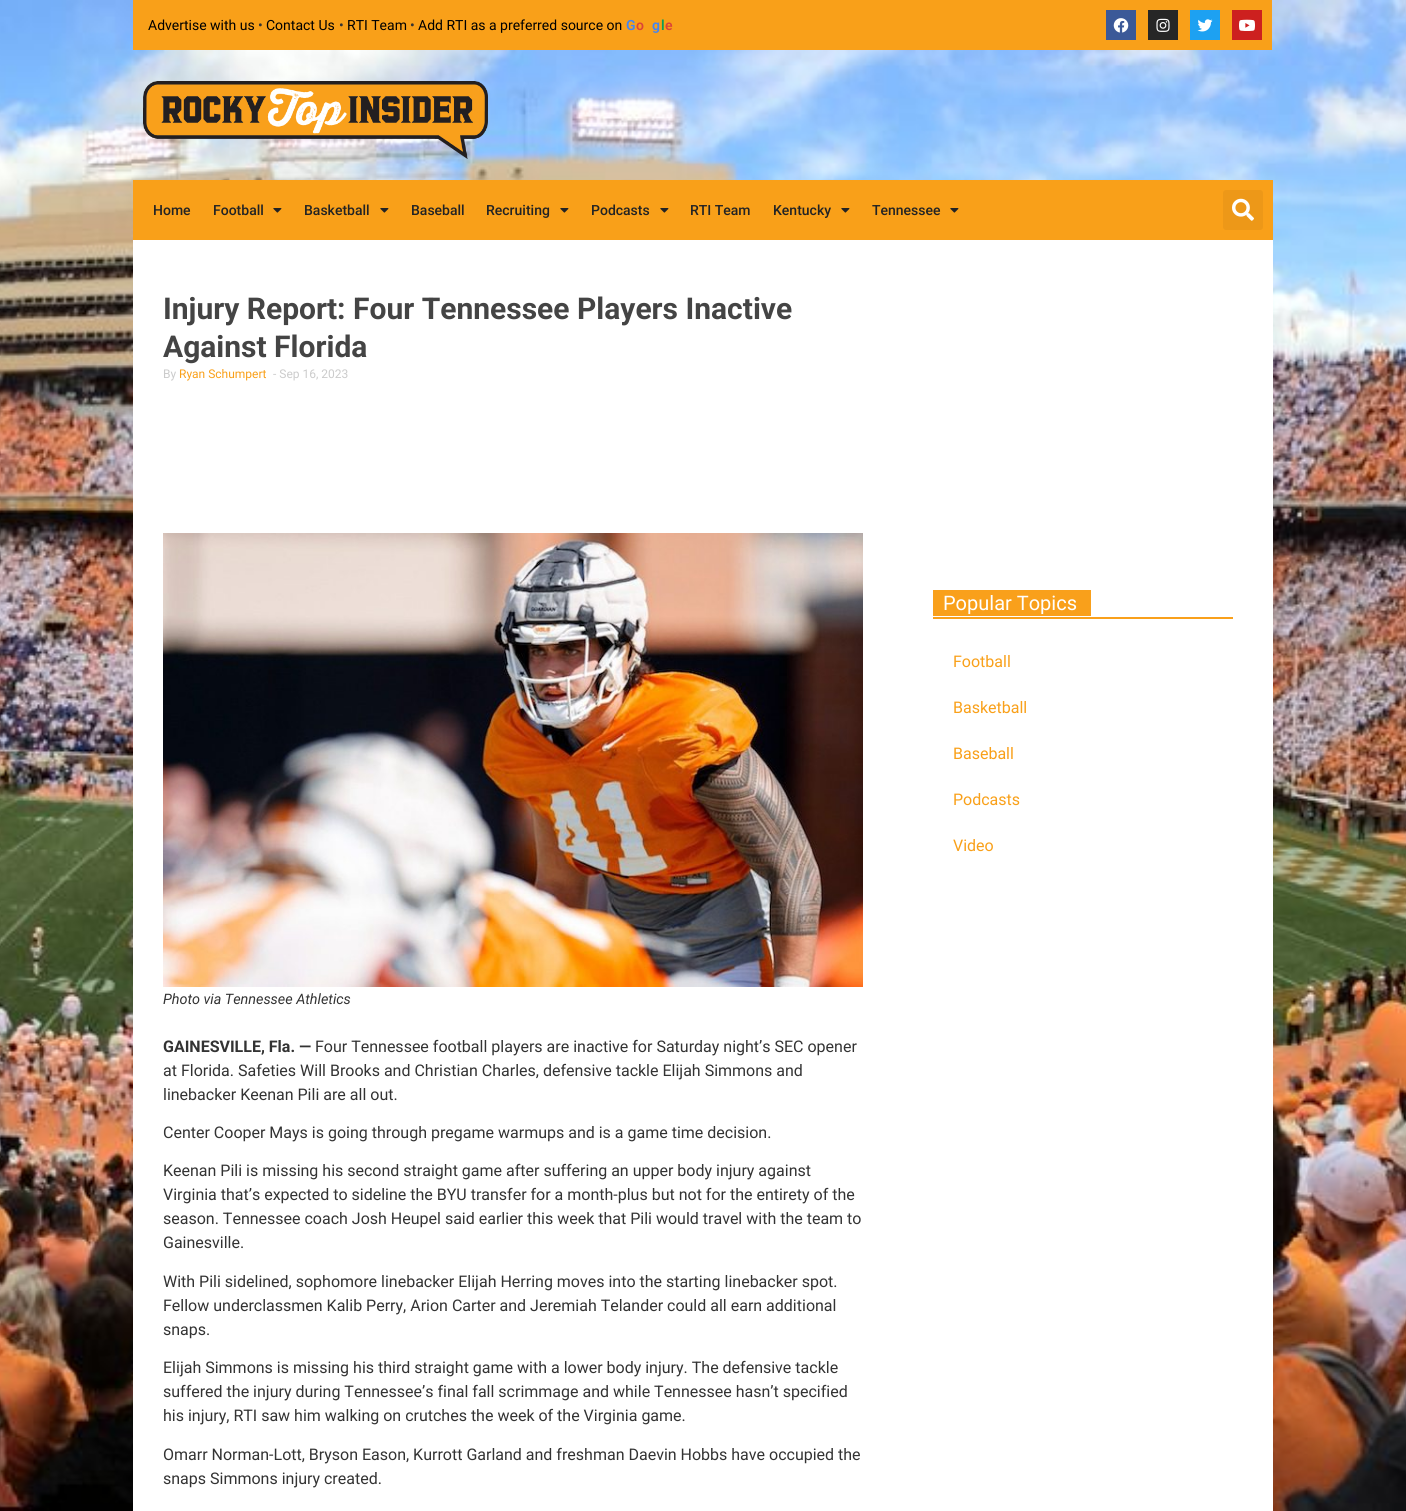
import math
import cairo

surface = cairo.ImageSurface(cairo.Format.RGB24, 1406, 1511)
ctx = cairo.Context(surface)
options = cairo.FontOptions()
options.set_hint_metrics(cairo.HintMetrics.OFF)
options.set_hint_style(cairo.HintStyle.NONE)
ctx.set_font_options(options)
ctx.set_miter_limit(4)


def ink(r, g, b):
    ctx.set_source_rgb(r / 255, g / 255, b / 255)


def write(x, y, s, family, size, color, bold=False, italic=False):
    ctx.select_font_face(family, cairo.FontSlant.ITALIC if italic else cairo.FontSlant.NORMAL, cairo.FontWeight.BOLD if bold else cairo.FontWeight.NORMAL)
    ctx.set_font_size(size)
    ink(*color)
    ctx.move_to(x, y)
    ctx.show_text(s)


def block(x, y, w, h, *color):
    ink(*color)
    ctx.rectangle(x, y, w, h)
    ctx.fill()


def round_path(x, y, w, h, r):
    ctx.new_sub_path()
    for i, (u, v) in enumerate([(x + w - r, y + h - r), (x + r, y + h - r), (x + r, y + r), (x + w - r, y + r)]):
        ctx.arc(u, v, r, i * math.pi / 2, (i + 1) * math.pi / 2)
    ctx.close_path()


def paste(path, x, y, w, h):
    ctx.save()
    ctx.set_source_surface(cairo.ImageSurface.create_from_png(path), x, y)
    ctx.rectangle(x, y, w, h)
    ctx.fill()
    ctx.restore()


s1 = dict(family="Roboto", size=14, color=(0, 0, 0))
s2 = dict(family="Roboto", size=14, color=(51, 51, 51))
s3 = dict(family="Roboto SemiBold", size=14, color=(66, 133, 244))
s4 = dict(family="Roboto SemiBold", size=14, color=(219, 68, 55))
s5 = dict(family="Roboto SemiBold", size=14, color=(15, 157, 88))
s6 = dict(family="Roboto Medium", size=14, color=(34, 35, 36))
s7 = dict(family="Roboto", size=30, color=(68, 68, 68), bold=True)
s8 = dict(family="Roboto", size=12, color=(203, 203, 203))
s9 = dict(family="Roboto", size=12, color=(249, 160, 25))
s10 = dict(family="Roboto", size=14.4, color=(51, 51, 51), italic=True)
s11 = dict(family="Roboto", size=16, color=(51, 51, 51), bold=True)
s12 = dict(family="Roboto", size=16, color=(51, 51, 51))
s13 = dict(family="Roboto", size=20, color=(255, 255, 255))
s14 = dict(family="Roboto", size=16, color=(249, 160, 25))

ink(255, 255, 255)
ctx.paint()
paste("pic1.png", 0, 0, 1406, 1511)
block(133, 0, 1139, 50, 249, 160, 25)
write(148, 30, "Advertise with us", **s1)
write(258, 30, "•", **s2)
write(266, 30, "Contact Us", **s1)
write(339, 30, "•", **s2)
write(347, 30, "RTI Team", **s1)
write(410, 30, "•", **s2)
write(418, 30, "Add RTI as a preferred source on", **s1)
write(626, 30, "G", **s3)
write(636, 30, "o", **s4)
write(652, 30, "g", **s3)
write(661, 30, "l", **s5)
write(665, 30, "e", **s4)
block(1106, 10, 30, 30, 59, 89, 152)
paste("pic2.png", 1113, 18, 16, 15)
block(1148, 10, 30, 30, 38, 38, 38)
paste("pic3.png", 1156, 18, 14, 14)
block(1190, 10, 30, 30, 29, 161, 242)
paste("pic4.png", 1197, 19, 16, 13)
block(1232, 10, 30, 30, 205, 32, 31)
paste("pic5.png", 1239, 19, 16, 12)
paste("pic6.png", 143, 81, 345, 78)
block(133, 180, 1140, 60, 249, 160, 25)
write(153, 215, "Home", **s6)
write(213, 215, "Football", **s6)
paste("pic7.png", 273, 208, 9, 5)
write(304, 215, "Basketball", **s6)
paste("pic7.png", 380, 208, 9, 5)
write(411, 215, "Baseball", **s6)
write(486, 215, "Recruiting", **s6)
paste("pic7.png", 560, 208, 9, 5)
write(591, 215, "Podcasts", **s6)
paste("pic7.png", 660, 208, 9, 5)
write(690, 215, "RTI Team", **s6)
write(773, 215, "Kentucky", **s6)
paste("pic7.png", 841, 208, 9, 5)
write(872, 215, "Tennessee", **s6)
paste("pic7.png", 950, 208, 9, 5)
ink(237, 152, 24)
round_path(1223, 190, 40, 40, 3)
ctx.fill()
paste("pic8.png", 1232, 198, 22, 23)
block(133, 240, 1140, 1271, 255, 255, 255)
write(163, 319, "Injury Report: Four Tennessee Players Inactive", **s7)
write(163, 357, "Against Florida", **s7)
write(163, 378, "By", **s8)
write(179, 378, "Ryan Schumpert", **s9)
write(273, 378, "- Sep 16, 2023", **s8)
paste("pic9.png", 163, 533, 700, 454)
write(163, 1004, "Photo via Tennessee Athletics", **s10)
write(163, 1052, "GAINESVILLE, Fla. —", **s11)
write(315, 1052, "Four Tennessee football players are inactive for Saturday night’s SEC opener", **s12)
write(163, 1076, "at Florida. Safeties Will Brooks and Christian Charles, defensive tackle Elijah Simmons and", **s12)
write(163, 1100, "linebacker Keenan Pili are all out.", **s12)
write(163, 1138, "Center Cooper Mays is going through pregame warmups and is a game time decision.", **s12)
write(163, 1176, "Keenan Pili is missing his second straight game after suffering an upper body injury against", **s12)
write(163, 1200, "Virginia that’s expected to sideline the BYU transfer for a month-plus but not for the entirety of the", **s12)
write(163, 1224, "season. Tennessee coach Josh Heupel said earlier this week that Pili would travel with the team to", **s12)
write(163, 1248, "Gainesville.", **s12)
write(163, 1287, "With Pili sidelined, sophomore linebacker Elijah Herring moves into the starting linebacker spot.", **s12)
write(163, 1311, "Fellow underclassmen Kalib Perry, Arion Carter and Jeremiah Telander could all earn additional", **s12)
write(163, 1335, "snaps.", **s12)
write(163, 1373, "Elijah Simmons is missing his third straight game with a lower body injury. The defensive tackle", **s12)
write(163, 1397, "suffered the injury during Tennessee’s final fall scrimmage and while Tennessee hasn’t specified", **s12)
write(163, 1421, "his injury, RTI saw him walking on crutches the week of the Virginia game.", **s12)
write(163, 1460, "Omarr Norman-Lott, Bryson Eason, Kurrott Garland and freshman Daevin Hobbs have occupied the", **s12)
write(163, 1484, "snaps Simmons injury created.", **s12)
block(933, 617, 300, 2, 249, 160, 27)
block(933, 590, 158, 26, 249, 160, 27)
write(943, 610, "Popular Topics", **s13)
write(953, 667, "Football", **s14)
write(953, 713, "Basketball", **s14)
write(953, 759, "Baseball", **s14)
write(953, 805, "Podcasts", **s14)
write(953, 851, "Video", **s14)
surface.write_to_png("screenshot.png")
